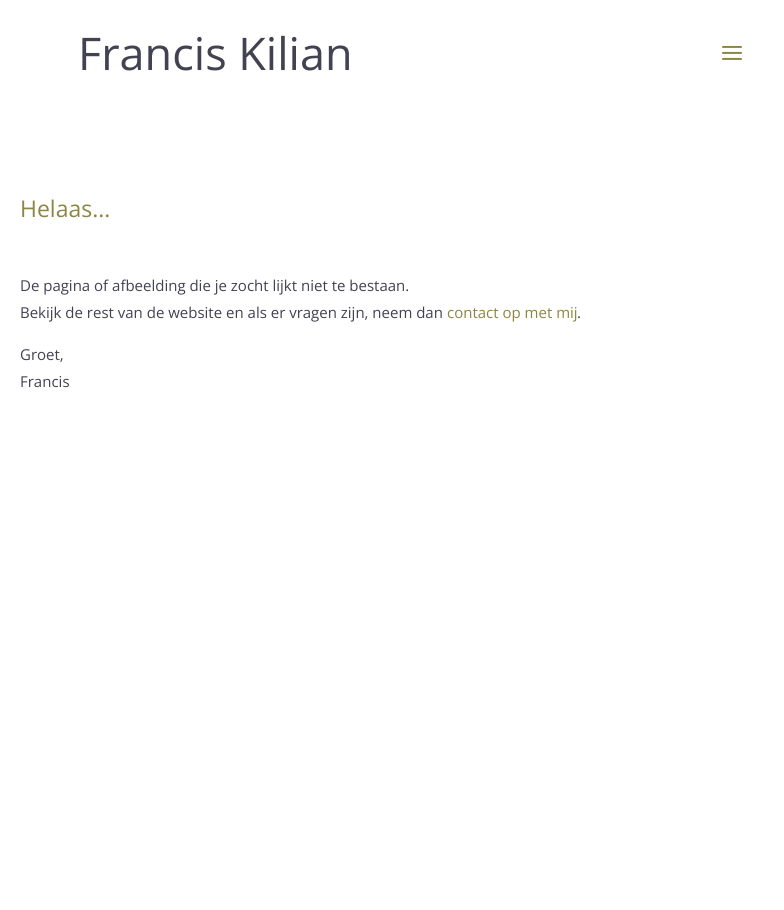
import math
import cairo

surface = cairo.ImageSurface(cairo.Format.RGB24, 784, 910)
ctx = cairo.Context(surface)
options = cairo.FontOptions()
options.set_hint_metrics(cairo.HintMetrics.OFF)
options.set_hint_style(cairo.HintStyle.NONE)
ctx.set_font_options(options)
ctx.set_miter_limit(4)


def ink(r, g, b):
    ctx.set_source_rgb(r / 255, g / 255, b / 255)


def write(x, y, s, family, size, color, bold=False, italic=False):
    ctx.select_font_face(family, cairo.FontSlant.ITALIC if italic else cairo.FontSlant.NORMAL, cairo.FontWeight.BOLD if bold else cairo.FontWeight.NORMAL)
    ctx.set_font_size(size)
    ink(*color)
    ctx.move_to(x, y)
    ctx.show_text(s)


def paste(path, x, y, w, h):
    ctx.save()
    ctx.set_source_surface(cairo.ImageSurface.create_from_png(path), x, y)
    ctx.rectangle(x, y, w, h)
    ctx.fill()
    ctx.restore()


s1 = dict(family="Open Sans", size=45, color=(66, 66, 81))
s2 = dict(family="Open Sans", size=23, color=(141, 133, 68))
s3 = dict(family="Open Sans", size=15, color=(66, 66, 81))
s4 = dict(family="Open Sans", size=15, color=(141, 133, 68))

ink(255, 255, 255)
ctx.paint()
write(78, 70, "Francis Kilian", **s1)
paste("pic1.png", 722, 45, 20, 15)
write(20, 217, "Helaas...", **s2)
write(20, 291, "De pagina of afbeelding die je zocht lijkt niet te bestaan.", **s3)
write(20, 318, "Bekijk de rest van de website en als er vragen zijn, neem dan", **s3)
write(447, 318, "contact op met mij", **s4)
write(577, 318, ".", **s3)
write(20, 360, "Groet,", **s3)
write(20, 387, "Francis", **s3)
surface.write_to_png("screenshot.png")
